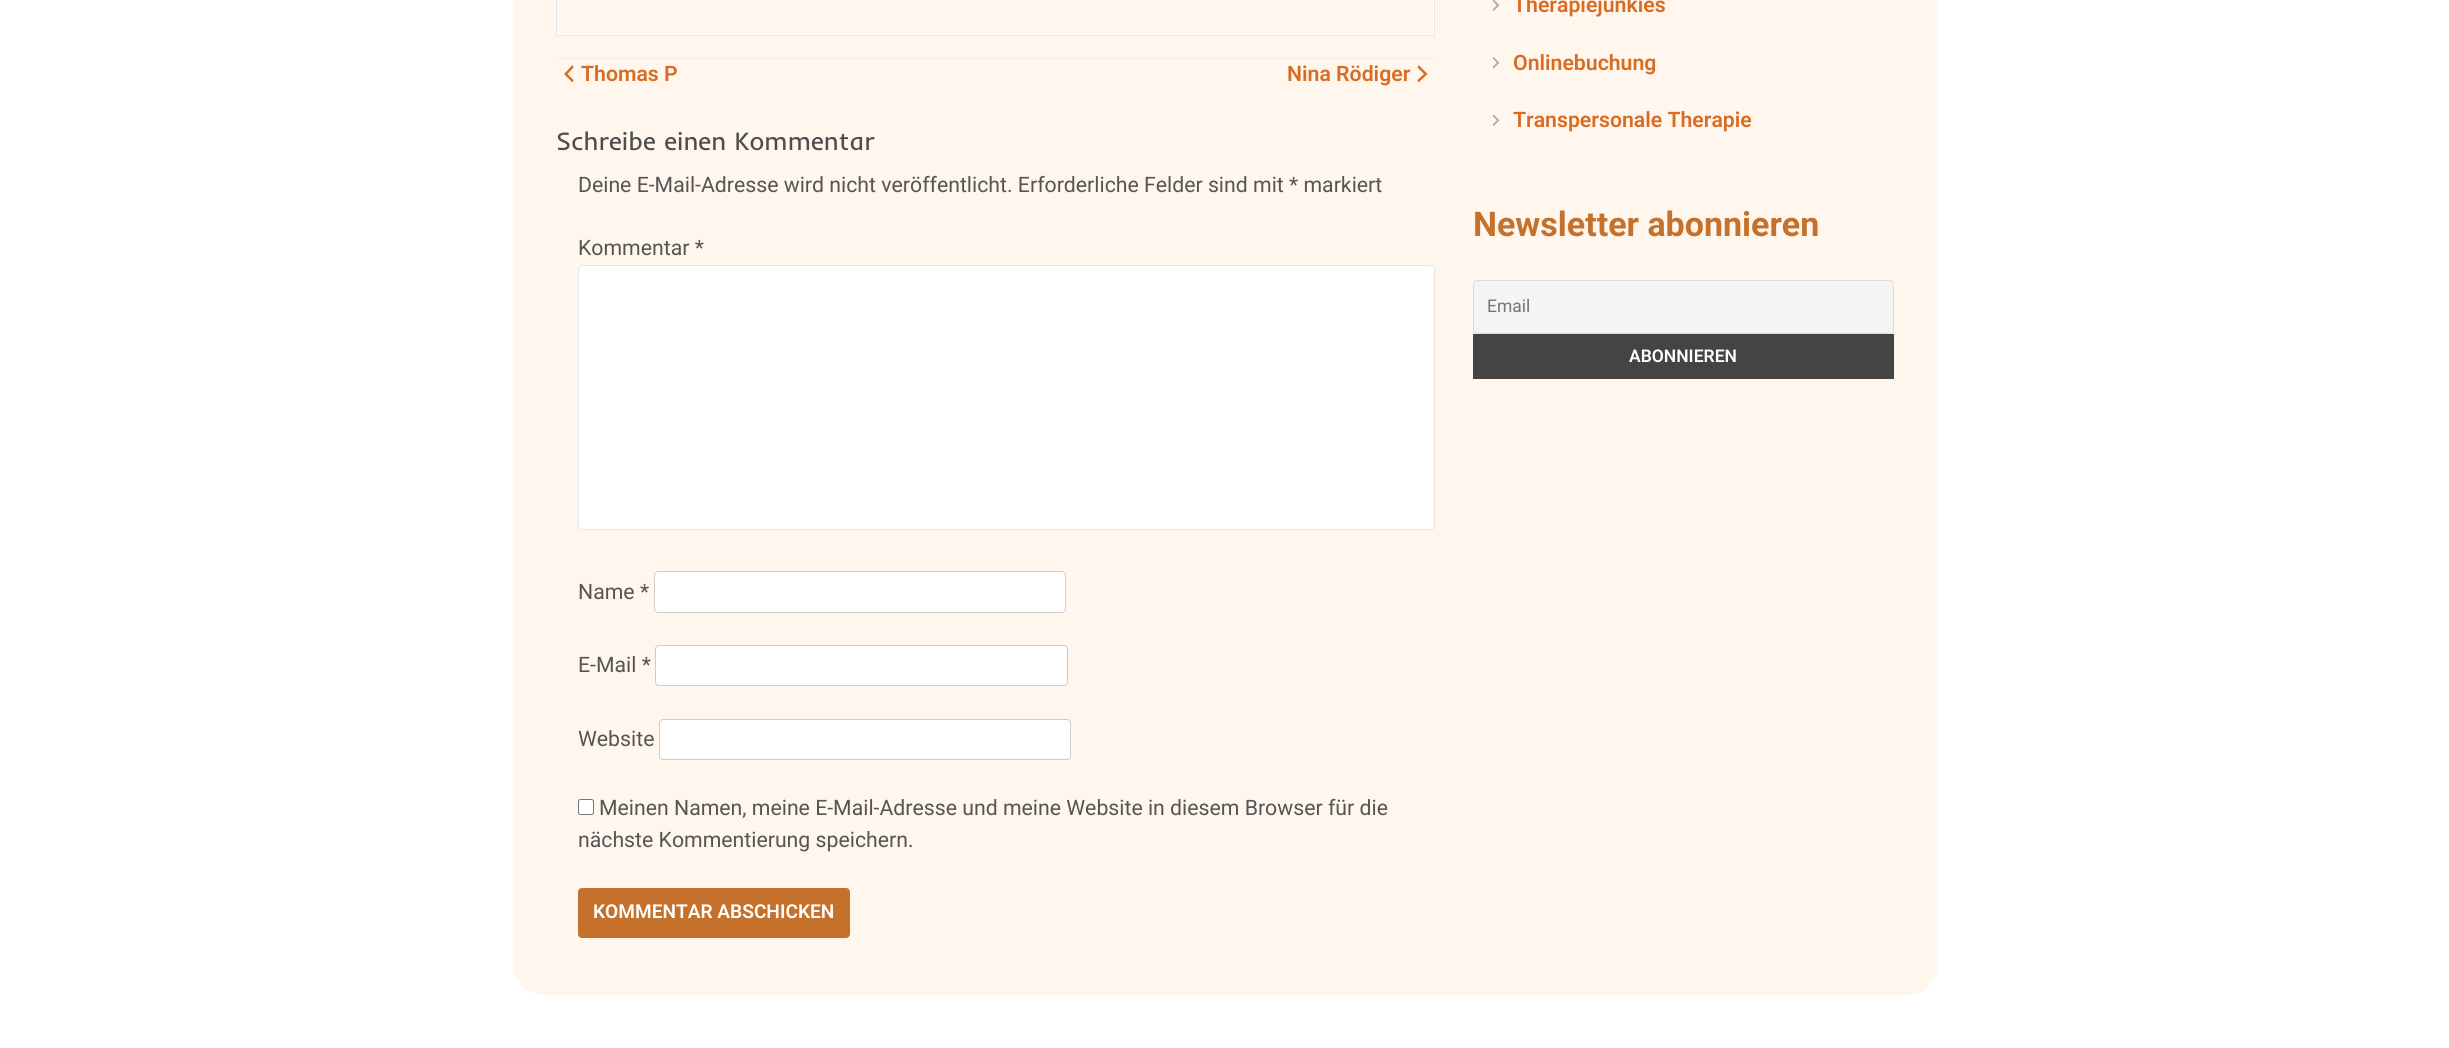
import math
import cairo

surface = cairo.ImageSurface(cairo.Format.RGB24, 2449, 1048)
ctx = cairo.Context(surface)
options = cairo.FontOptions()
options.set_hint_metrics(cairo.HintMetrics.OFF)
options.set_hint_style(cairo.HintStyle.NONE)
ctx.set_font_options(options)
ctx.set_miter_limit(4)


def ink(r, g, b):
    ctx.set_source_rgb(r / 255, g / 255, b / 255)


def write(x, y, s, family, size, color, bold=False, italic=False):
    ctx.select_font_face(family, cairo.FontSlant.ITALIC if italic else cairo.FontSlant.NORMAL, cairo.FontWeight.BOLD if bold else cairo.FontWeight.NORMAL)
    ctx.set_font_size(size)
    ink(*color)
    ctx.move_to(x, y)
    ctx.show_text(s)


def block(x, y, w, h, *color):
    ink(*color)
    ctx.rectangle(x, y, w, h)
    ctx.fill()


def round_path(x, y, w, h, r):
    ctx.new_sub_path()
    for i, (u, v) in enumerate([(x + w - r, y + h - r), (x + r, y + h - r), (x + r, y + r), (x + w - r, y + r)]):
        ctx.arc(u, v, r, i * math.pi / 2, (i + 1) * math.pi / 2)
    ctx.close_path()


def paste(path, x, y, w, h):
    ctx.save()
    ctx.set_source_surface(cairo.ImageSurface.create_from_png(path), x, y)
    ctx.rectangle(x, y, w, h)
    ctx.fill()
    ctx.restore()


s1 = dict(family="Roboto SemiBold", size=21.25, color=(217, 108, 35))
s2 = dict(family="Inder", size=25.5, color=(77, 77, 77))
s3 = dict(family="Roboto", size=21.25, color=(85, 85, 85))
s4 = dict(family="Roboto SemiBold", size=19.1, color=(255, 255, 255))
s5 = dict(family="Roboto", size=34, color=(198, 113, 43), bold=True)
s6 = dict(family="Roboto", size=17.5, color=(117, 117, 117))
s7 = dict(family="Roboto SemiBold", size=17.5, color=(255, 255, 255))

ink(255, 255, 255)
ctx.paint()
ink(255, 246, 238)
round_path(513, -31, 1425, 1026, 31)
ctx.fill()
block(556, 58, 879, 1, 238, 238, 238)
ctx.rectangle(556.5, -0.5, 878, 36)
ink(230, 230, 230)
ctx.set_line_width(1)
ctx.stroke()
ctx.rectangle(558.5, -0.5, 875, 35)
ink(255, 255, 255)
ctx.stroke()
ink(217, 108, 35)
ctx.new_path()
ctx.move_to(573.5, 67.5)
ctx.line_to(567.5, 74)
ctx.line_to(573.5, 80)
ctx.line_to(572.5, 82.5)
ctx.line_to(564, 74)
ctx.line_to(572.5, 65)
ctx.close_path()
ctx.fill()
write(581, 81, "Thomas P", **s1)
write(1287, 81, "Nina Rödiger", **s1)
ctx.new_path()
ctx.move_to(1417.5, 80)
ctx.line_to(1424, 74)
ctx.line_to(1417.5, 67.5)
ctx.line_to(1418.5, 65)
ctx.line_to(1427.5, 74)
ctx.line_to(1418.5, 82.5)
ctx.close_path()
ctx.fill()
write(556, 150, "Schreibe einen Kommentar", **s2)
write(578, 192, "Deine E-Mail-Adresse wird nicht veröffentlicht. Erforderliche Felder sind mit * markiert", **s3)
write(578, 255, "Kommentar *", **s3)
ink(255, 255, 255)
round_path(578.5, 265.5, 856, 264, 3.5)
ctx.fill_preserve()
ink(230, 230, 230)
ctx.stroke()
write(578, 599, "Name *", **s3)
ink(255, 255, 255)
round_path(654.5, 571.5, 411, 41, 3.5)
ctx.fill_preserve()
ink(204, 204, 204)
ctx.stroke()
write(578, 672, "E-Mail *", **s3)
ink(255, 255, 255)
round_path(655.5, 645.5, 412, 40, 3.5)
ctx.fill_preserve()
ink(204, 204, 204)
ctx.stroke()
write(578, 746, "Website", **s3)
ink(255, 255, 255)
round_path(659.5, 719.5, 411, 40, 3.5)
ctx.fill_preserve()
ink(204, 204, 204)
ctx.stroke()
ink(255, 255, 255)
round_path(578.5, 799.5, 15, 15, 2)
ctx.fill_preserve()
ink(118, 118, 118)
ctx.stroke()
write(599, 815, "Meinen Namen, meine E-Mail-Adresse und meine Website in diesem Browser für die", **s3)
write(578, 847, "nächste Kommentierung speichern.", **s3)
ink(198, 113, 43)
round_path(578, 888, 272, 50, 4)
ctx.fill()
write(593, 918, "KOMMENTAR ABSCHICKEN", **s4)
paste("pic1.png", 1492, 0, 8, 11)
write(1513, 12, "Therapiejunkies", **s1)
paste("pic2.png", 1492, 57, 8, 12)
write(1513, 70, "Onlinebuchung", **s1)
paste("pic3.png", 1492, 114, 8, 12)
write(1513, 127, "Transpersonale Therapie", **s1)
write(1473, 236, "Newsletter abonnieren", **s5)
ink(244, 244, 244)
round_path(1473.5, 280.5, 420, 53, 3.5)
ctx.fill_preserve()
ink(221, 221, 221)
ctx.stroke()
write(1487, 312, "Email", **s6)
block(1473, 334, 421, 45, 68, 68, 68)
write(1629, 362, "ABONNIEREN", **s7)
surface.write_to_png("screenshot.png")
